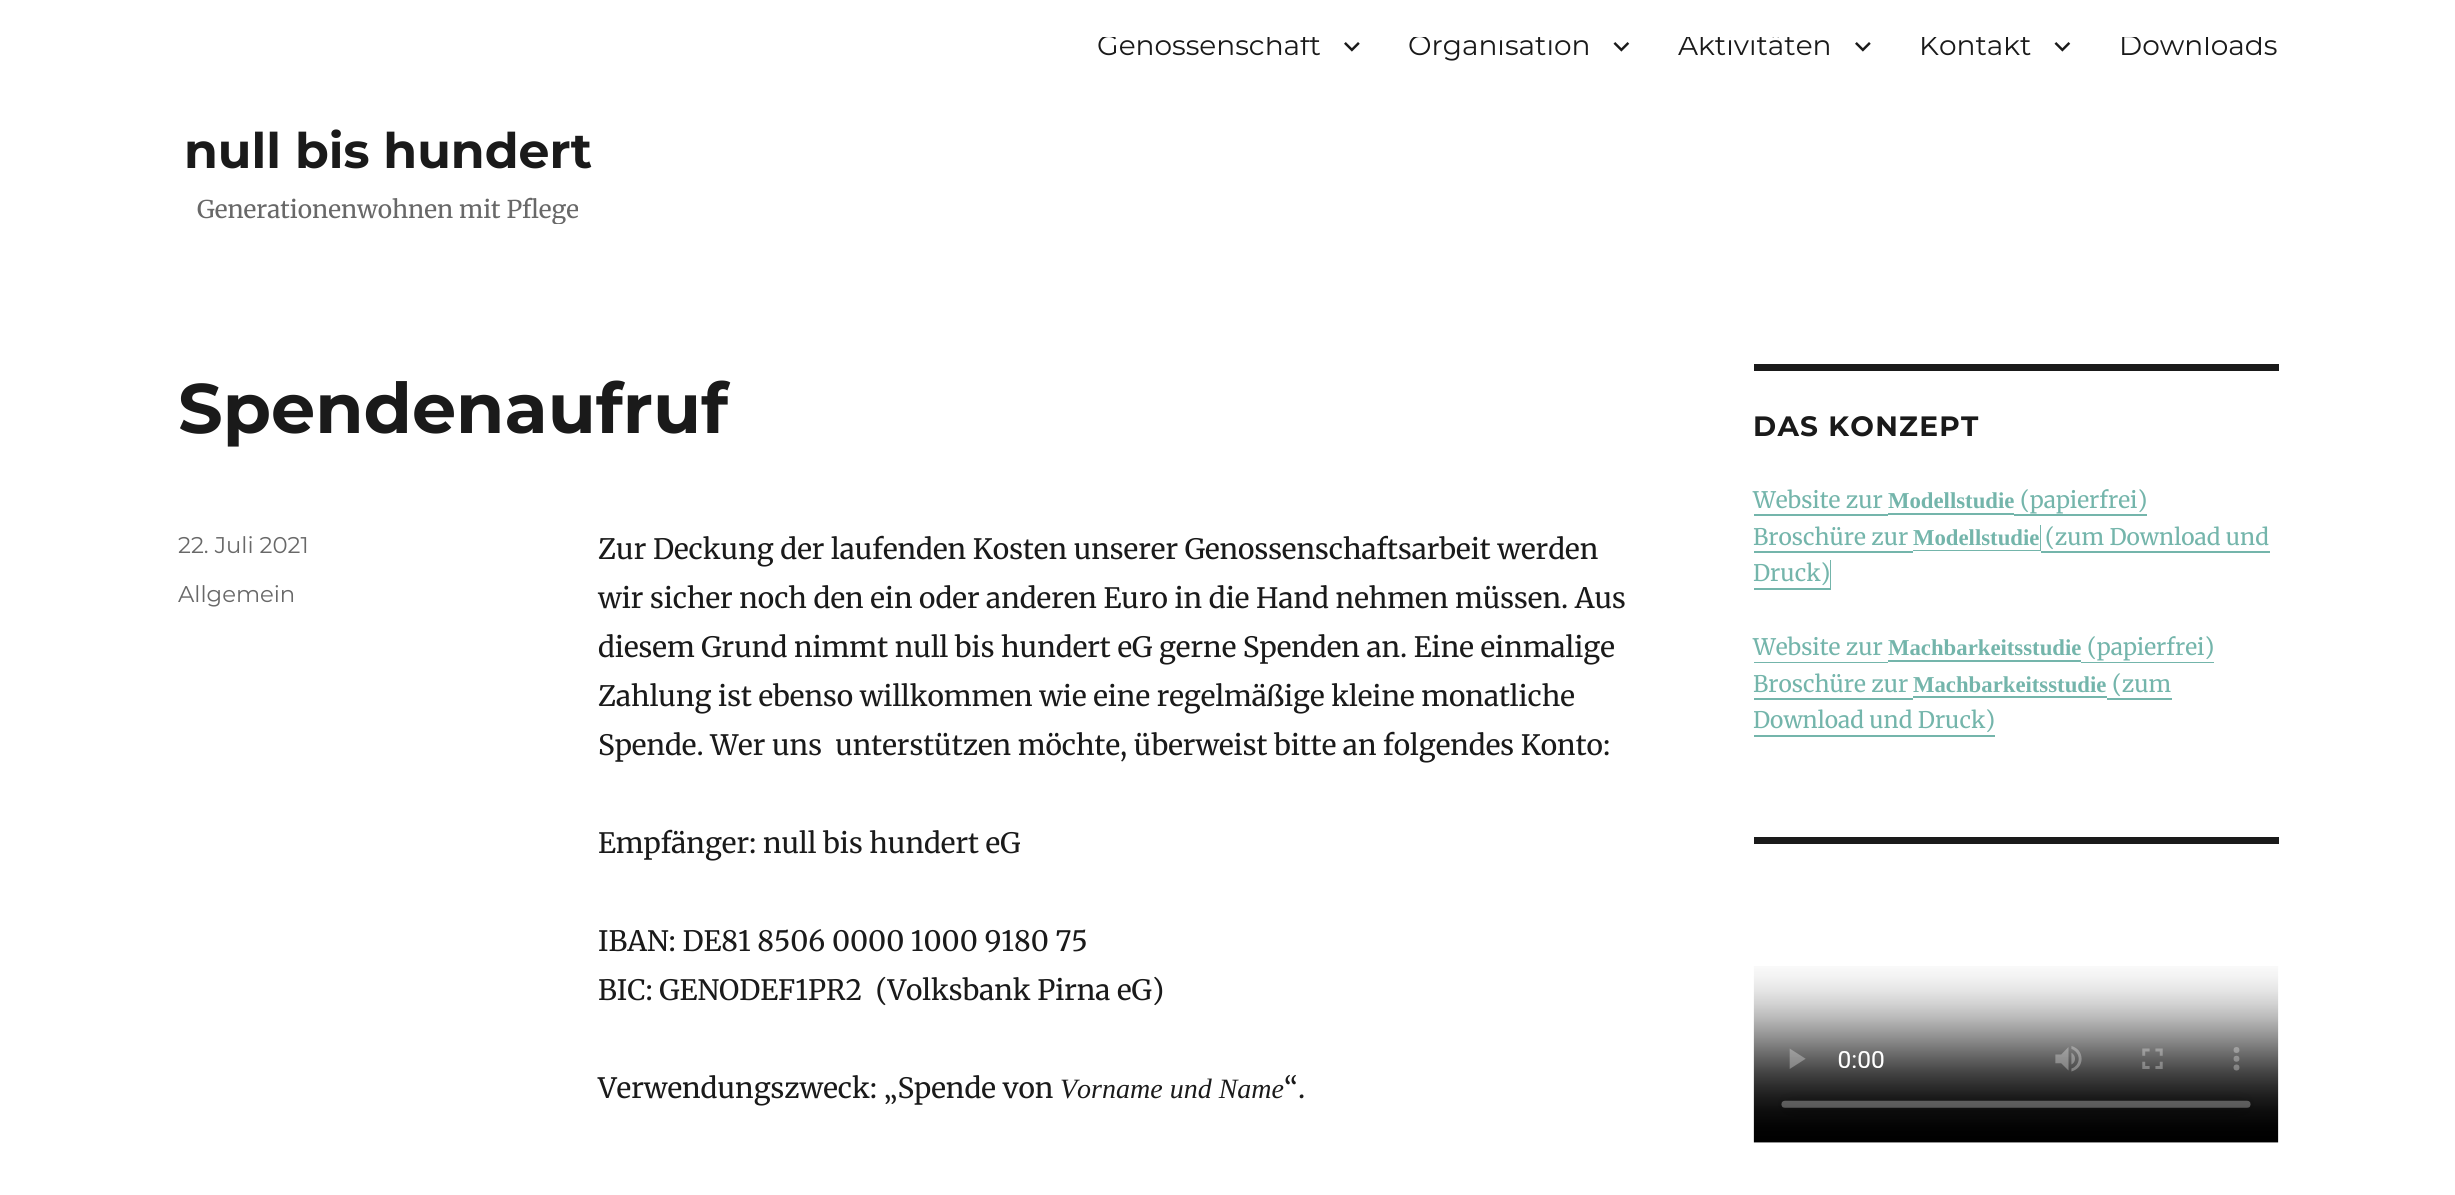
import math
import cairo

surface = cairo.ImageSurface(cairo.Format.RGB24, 2455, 1195)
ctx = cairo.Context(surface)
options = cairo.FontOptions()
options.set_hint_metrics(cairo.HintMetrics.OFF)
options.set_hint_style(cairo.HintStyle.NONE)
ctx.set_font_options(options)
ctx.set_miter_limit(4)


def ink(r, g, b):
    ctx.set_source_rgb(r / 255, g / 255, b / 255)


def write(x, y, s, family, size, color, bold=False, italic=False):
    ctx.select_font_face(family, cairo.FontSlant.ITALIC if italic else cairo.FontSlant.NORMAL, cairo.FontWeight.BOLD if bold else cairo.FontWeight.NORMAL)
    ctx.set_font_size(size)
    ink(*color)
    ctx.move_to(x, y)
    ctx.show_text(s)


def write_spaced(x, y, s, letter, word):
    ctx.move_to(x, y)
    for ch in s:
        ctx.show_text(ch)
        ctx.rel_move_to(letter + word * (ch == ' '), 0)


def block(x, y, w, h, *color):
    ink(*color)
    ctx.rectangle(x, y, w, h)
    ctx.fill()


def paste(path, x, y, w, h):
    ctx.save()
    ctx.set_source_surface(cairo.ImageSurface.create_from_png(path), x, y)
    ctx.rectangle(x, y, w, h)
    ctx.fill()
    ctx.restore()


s1 = dict(family="Montserrat", size=28, color=(26, 26, 26))
s2 = dict(family="Montserrat", size=49, color=(26, 26, 26), bold=True)
s3 = dict(family="Merriweather", size=24.4, color=(104, 104, 104))
s4 = dict(family="Montserrat", size=70, color=(26, 26, 26), bold=True)
s5 = dict(family="Montserrat", size=22.75, color=(104, 104, 104))
s6 = dict(family="Merriweather", size=28, color=(26, 26, 26))
s7 = dict(family="Liberation Serif", size=28, color=(26, 26, 26), italic=True)
s8 = dict(family="Merriweather", size=22.75, color=(116, 181, 171))
s9 = dict(family="Liberation Serif", size=22.75, color=(116, 181, 171), bold=True)

ink(255, 255, 255)
ctx.paint()
write(1097, 55, "Genossenschaft", **s1)
paste("pic1.png", 1344, 42, 16, 10)
write(1408, 55, "Organisation", **s1)
paste("pic2.png", 1613, 42, 17, 10)
write(1678, 55, "Aktivitäten", **s1)
paste("pic1.png", 1855, 42, 16, 10)
write(1919, 55, "Kontakt", **s1)
paste("pic2.png", 2054, 42, 17, 10)
write(2119, 55, "Downloads", **s1)
write(184, 168, "null bis hundert", **s2)
ctx.save()
ctx.rectangle(179, 0, 420, 224)
ctx.clip()
write(197, 218, "Generationenwohnen mit Pflege", **s3)
ctx.restore()
write(178, 433, "Spendenaufruf", **s4)
write(178, 553, "22. Juli 2021", **s5)
write(178, 602, "Allgemein", **s5)
write(598, 559, "Zur Deckung der laufenden Kosten unserer Genossenschaftsarbeit werden", **s6)
write(598, 608, "wir sicher noch den ein oder anderen Euro in die Hand nehmen müssen. Aus", **s6)
write(598, 657, "diesem Grund nimmt null bis hundert eG gerne Spenden an. Eine einmalige", **s6)
write(598, 706, "Zahlung ist ebenso willkommen wie eine regelmäßige kleine monatliche", **s6)
write(598, 755, "Spende. Wer uns  unterstützen möchte, überweist bitte an folgendes Konto:", **s6)
write(598, 853, "Empfänger: null bis hundert eG", **s6)
write(598, 951, "IBAN: DE81 8506 0000 1000 9180 75", **s6)
write(598, 1000, "BIC: GENODEF1PR2  (Volksbank Pirna eG)", **s6)
write(598, 1098, "Verwendungszweck: „Spende von", **s6)
write(1060, 1098, "Vorname und Name", **s7)
write(1284, 1098, "“.", **s6)
block(1754, 364, 525, 7, 26, 26, 26)
ctx.select_font_face("Montserrat", cairo.FontSlant.NORMAL, cairo.FontWeight.BOLD)
write_spaced(1753, 436, "DAS KONZEPT", 1.25, 0)
write(1753, 508, "Website zur", **s8)
write(1888, 508, "Modellstudie", **s9)
block(1754, 514, 134, 2, 116, 181, 171)
ctx.new_path()
ctx.move_to(1888, 488)
ctx.line_to(1888, 515)
ctx.line_to(2014, 515)
ctx.line_to(2014, 513)
ctx.line_to(1888, 513)
ctx.close_path()
ctx.fill()
write(2020, 508, "(papierfrei)", **s8)
ctx.new_path()
ctx.move_to(2014, 487)
ctx.line_to(2014, 516)
ctx.line_to(2147, 516)
ctx.line_to(2147, 514)
ctx.line_to(2014, 514)
ctx.close_path()
ctx.fill()
write(1753, 545, "Broschüre zur", **s8)
ctx.new_path()
ctx.move_to(1913, 550)
ctx.line_to(1913, 551)
ctx.line_to(2041, 551)
ctx.line_to(2041, 525)
ctx.line_to(2040, 525)
ctx.line_to(2040, 550)
ctx.close_path()
ctx.fill()
write(1913, 545, "Modellstudie", **s9)
ctx.new_path()
ctx.move_to(1754, 551)
ctx.line_to(1754, 553)
ctx.line_to(1913, 553)
ctx.line_to(1913, 523)
ctx.line_to(1913, 551)
ctx.close_path()
ctx.fill()
write(2045, 545, "(zum Download und", **s8)
ctx.new_path()
ctx.move_to(2041, 551)
ctx.line_to(2041, 553)
ctx.line_to(2270, 553)
ctx.line_to(2270, 523)
ctx.line_to(2270, 551)
ctx.close_path()
ctx.fill()
ctx.new_path()
ctx.move_to(1754, 588)
ctx.line_to(1754, 590)
ctx.line_to(1831, 590)
ctx.line_to(1831, 560)
ctx.line_to(1830, 560)
ctx.line_to(1830, 588)
ctx.close_path()
ctx.fill()
write(1753, 581, "Druck)", **s8)
write(1753, 655, "Website zur", **s8)
write(1888, 655, "Machbarkeitsstudie", **s9)
block(1754, 662, 134, 1, 116, 181, 171)
ctx.new_path()
ctx.move_to(1888, 635)
ctx.line_to(1888, 662)
ctx.line_to(2081, 662)
ctx.line_to(2081, 635)
ctx.line_to(2081, 660)
ctx.line_to(1888, 660)
ctx.close_path()
ctx.fill()
write(2087, 655, "(papierfrei)", **s8)
ctx.new_path()
ctx.move_to(2081, 662)
ctx.line_to(2081, 663)
ctx.line_to(2214, 663)
ctx.line_to(2214, 634)
ctx.line_to(2214, 662)
ctx.close_path()
ctx.fill()
write(1753, 692, "Broschüre zur", **s8)
write(1913, 692, "Machbarkeitsstudie", **s9)
ctx.new_path()
ctx.move_to(1754, 698)
ctx.line_to(1754, 700)
ctx.line_to(1913, 700)
ctx.line_to(1913, 670)
ctx.line_to(1913, 698)
ctx.close_path()
ctx.fill()
block(1913, 696, 194, 2, 116, 181, 171)
write(2112, 692, "(zum", **s8)
ctx.new_path()
ctx.move_to(2107, 698)
ctx.line_to(2107, 700)
ctx.line_to(2172, 700)
ctx.line_to(2172, 670)
ctx.line_to(2172, 698)
ctx.close_path()
ctx.fill()
write(1753, 728, "Download und Druck)", **s8)
block(1754, 735, 241, 2, 116, 181, 171)
block(1754, 837, 525, 7, 26, 26, 26)
paste("pic3.png", 1753, 966, 526, 177)
block(1102, 34, 1160, 3, 255, 255, 255)
surface.write_to_png("screenshot.png")
